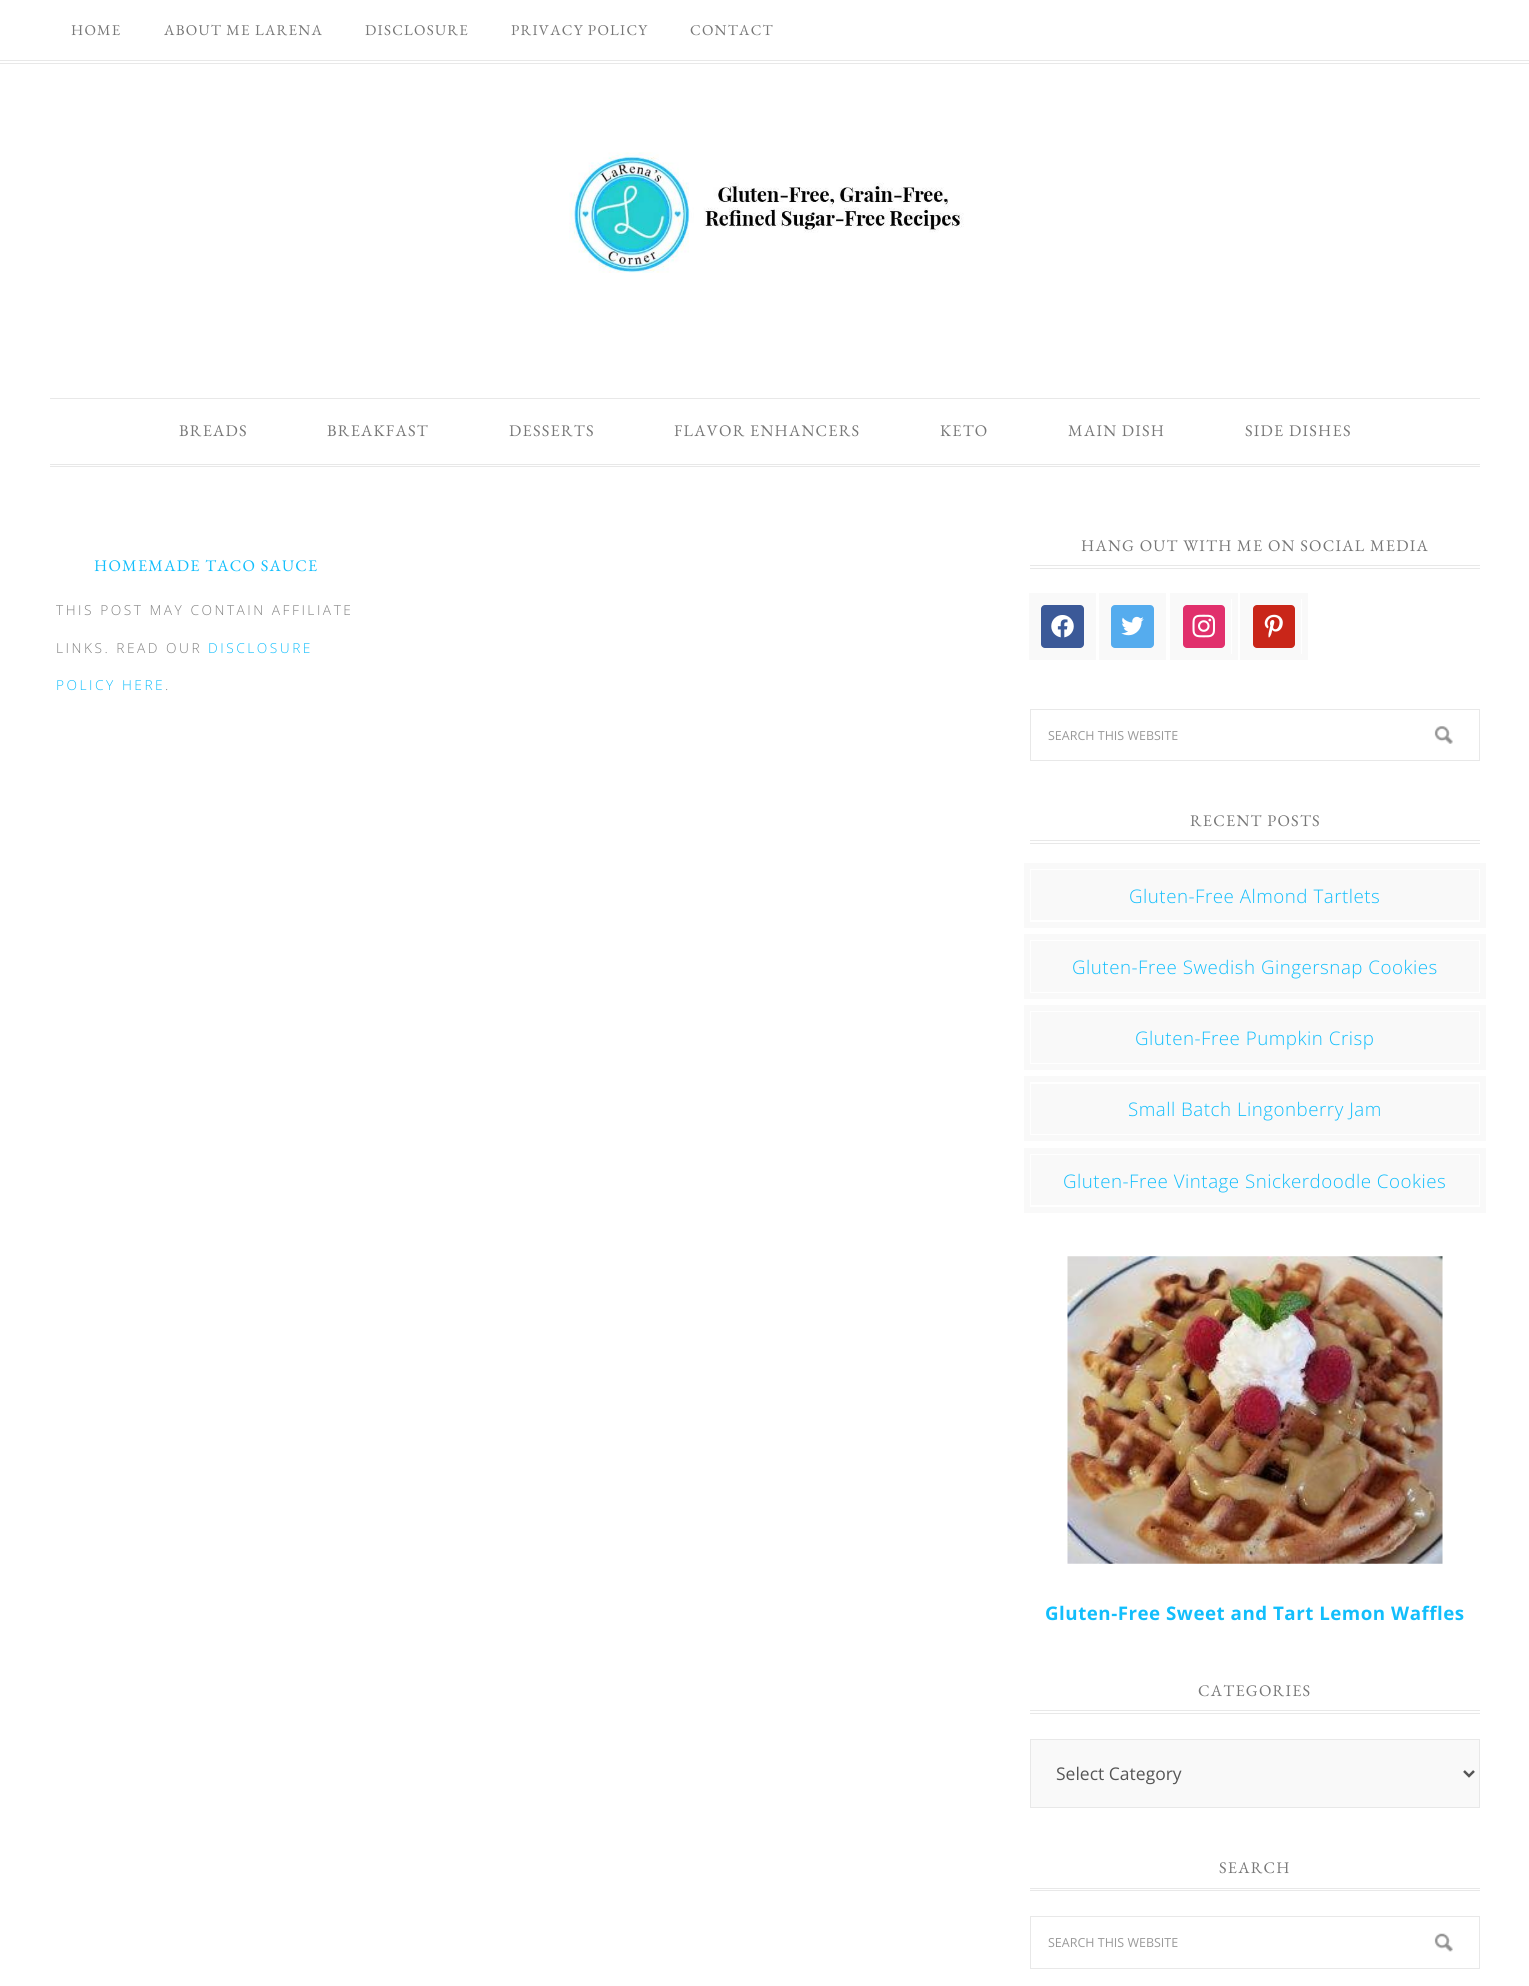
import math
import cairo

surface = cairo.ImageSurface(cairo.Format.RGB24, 1529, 1986)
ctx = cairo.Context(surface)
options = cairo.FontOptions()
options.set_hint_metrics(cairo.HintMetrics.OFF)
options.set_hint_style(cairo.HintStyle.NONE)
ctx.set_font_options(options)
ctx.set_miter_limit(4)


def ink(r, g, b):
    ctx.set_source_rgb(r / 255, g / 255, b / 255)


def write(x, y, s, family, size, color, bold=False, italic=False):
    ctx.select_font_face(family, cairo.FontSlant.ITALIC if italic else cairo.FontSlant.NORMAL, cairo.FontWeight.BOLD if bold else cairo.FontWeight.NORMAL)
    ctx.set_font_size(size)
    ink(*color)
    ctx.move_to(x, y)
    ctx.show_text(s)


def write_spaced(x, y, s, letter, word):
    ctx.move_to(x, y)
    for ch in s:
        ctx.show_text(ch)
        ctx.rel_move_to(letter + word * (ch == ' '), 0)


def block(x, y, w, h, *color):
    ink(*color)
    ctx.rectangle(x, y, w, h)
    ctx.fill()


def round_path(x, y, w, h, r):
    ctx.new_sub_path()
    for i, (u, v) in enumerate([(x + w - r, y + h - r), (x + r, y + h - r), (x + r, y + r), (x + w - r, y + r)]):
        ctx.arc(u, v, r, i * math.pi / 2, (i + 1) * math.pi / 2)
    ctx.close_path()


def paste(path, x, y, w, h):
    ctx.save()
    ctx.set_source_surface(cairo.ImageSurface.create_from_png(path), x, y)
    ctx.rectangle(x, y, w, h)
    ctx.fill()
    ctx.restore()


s1 = dict(family="Open Sans", size=12.5, color=(153, 153, 153))
s2 = dict(family="Open Sans", size=17.5, color=(85, 85, 85))

ink(255, 255, 255)
ctx.paint()
block(0, 60, 1529, 1, 232, 232, 232)
block(0, 63, 1529, 1, 232, 232, 232)
ctx.select_font_face("EB Garamond")
ctx.set_font_size(15)
ink(119, 119, 119)
write_spaced(71, 35, "HOME", 1.25, 0)
write_spaced(164, 35, "ABOUT ME LARENA", 1.25, 0)
write_spaced(365, 35, "DISCLOSURE", 1.25, 0)
write_spaced(511, 35, "PRIVACY POLICY", 1.25, 0)
write_spaced(690, 35, "CONTACT", 1.25, 0)
block(50, 398, 1430, 1, 232, 232, 232)
paste("pic1.png", 569, 152, 395, 121)
block(50, 464, 1430, 1, 232, 232, 232)
block(50, 466, 1430, 1, 232, 232, 232)
ctx.set_font_size(16.25)
ink(119, 119, 119)
write_spaced(179, 436, "BREADS", 1.25, 0)
write_spaced(327, 436, "BREAKFAST", 1.25, 0)
write_spaced(509, 436, "DESSERTS", 1.25, 0)
write_spaced(674, 436, "FLAVOR ENHANCERS", 1.25, 0)
write_spaced(940, 436, "KETO", 1.25, 0)
write_spaced(1068, 436, "MAIN DISH", 1.25, 0)
write_spaced(1245, 436, "SIDE DISHES", 1.25, 0)
ink(18, 190, 252)
write_spaced(94, 571, "HOMEMADE TACO SAUCE", 1.25, 0)
ctx.select_font_face("Open Sans Light")
ctx.set_font_size(13.75)
ink(128, 128, 128)
write_spaced(56, 615, "THIS POST MAY CONTAIN AFFILIATE", 2.5, 0)
write_spaced(56, 653, "LINKS. READ OUR", 2.5, 0)
ink(18, 190, 252)
write_spaced(208, 653, "DISCLOSURE", 2.5, 0)
write_spaced(56, 690, "POLICY HERE", 2.5, 0)
ink(128, 128, 128)
write_spaced(165, 690, ".", 2.5, 0)
block(1030, 565, 450, 1, 232, 232, 232)
block(1030, 568, 450, 1, 232, 232, 232)
ctx.select_font_face("EB Garamond")
ctx.set_font_size(16.25)
ink(119, 119, 119)
write_spaced(1081, 551, "HANG OUT WITH ME ON SOCIAL MEDIA", 1.25, 0)
ink(249, 249, 249)
ctx.rectangle(1032, 596, 61, 61)
ctx.fill_preserve()
ctx.set_line_width(6)
ctx.stroke()
ink(59, 89, 152)
round_path(1041, 605, 43, 43, 4)
ctx.fill()
paste("pic2.png", 1051, 615, 23, 23)
ink(249, 249, 249)
ctx.rectangle(1102, 596, 61, 61)
ctx.fill_preserve()
ctx.stroke()
ink(85, 172, 238)
round_path(1111, 605, 43, 43, 4)
ctx.fill()
paste("pic3.png", 1121, 616, 23, 20)
block(1176, 599, 55, 55, 249, 249, 249)
ctx.rectangle(1173, 596, 62, 61)
ctx.stroke()
ink(225, 48, 108)
round_path(1183, 605, 42, 43, 4)
ctx.fill()
paste("pic4.png", 1192, 614, 23, 24)
block(1246, 599, 55, 55, 249, 249, 249)
ctx.rectangle(1243, 596, 62, 61)
ctx.stroke()
ink(201, 38, 25)
round_path(1253, 605, 42, 43, 4)
ctx.fill()
paste("pic5.png", 1264, 614, 19, 24)
paste("pic6.png", 1434, 726, 19, 18)
ctx.rectangle(1030.5, 709.5, 449, 51)
ink(232, 232, 232)
ctx.set_line_width(1)
ctx.stroke()
write(1048, 740, "SEARCH THIS WEBSITE", **s1)
block(1030, 840, 450, 1, 232, 232, 232)
block(1030, 843, 450, 1, 232, 232, 232)
ctx.select_font_face("EB Garamond")
ctx.set_font_size(16.25)
ink(119, 119, 119)
write_spaced(1190, 826, "RECENT POSTS", 1.25, 0)
block(1031, 870, 448, 50, 249, 249, 249)
ctx.rectangle(1027, 866, 456, 59)
ctx.set_line_width(6)
ctx.stroke()
ctx.select_font_face("Open Sans Light")
ctx.set_font_size(18.75)
ink(18, 190, 252)
write_spaced(1129, 903, "Gluten-Free Almond Tartlets", 0.5, 0)
block(1031, 941, 448, 51, 249, 249, 249)
ctx.rectangle(1027, 937, 456, 59)
ctx.stroke()
ink(18, 190, 252)
write_spaced(1072, 974, "Gluten-Free Swedish Gingersnap Cookies", 0.5, 0)
block(1031, 1012, 448, 51, 249, 249, 249)
ctx.rectangle(1027, 1008, 456, 59)
ctx.stroke()
ink(18, 190, 252)
write_spaced(1135, 1045, "Gluten-Free Pumpkin Crisp", 0.5, 0)
block(1031, 1084, 448, 50, 249, 249, 249)
ctx.rectangle(1027, 1079, 456, 59)
ctx.stroke()
ink(18, 190, 252)
write_spaced(1128, 1116, "Small Batch Lingonberry Jam", 0.5, 0)
block(1031, 1155, 448, 50, 249, 249, 249)
ctx.rectangle(1027, 1151, 456, 59)
ctx.stroke()
ink(18, 190, 252)
write_spaced(1063, 1188, "Gluten-Free Vintage Snickerdoodle Cookies", 0.5, 0)
paste("pic7.png", 1067, 1256, 376, 308)
ctx.select_font_face("Open Sans", cairo.FontSlant.NORMAL, cairo.FontWeight.BOLD)
write_spaced(1045, 1620, "Gluten-Free Sweet and Tart Lemon Waffles", 0.5, 0)
block(1030, 1710, 450, 1, 232, 232, 232)
block(1030, 1713, 450, 1, 232, 232, 232)
ctx.select_font_face("EB Garamond")
ctx.set_font_size(16.25)
ink(119, 119, 119)
write_spaced(1198, 1696, "CATEGORIES", 1.25, 0)
ink(249, 249, 249)
ctx.rectangle(1030.5, 1739.5, 449, 68)
ctx.fill_preserve()
ink(232, 232, 232)
ctx.set_line_width(1)
ctx.stroke()
ctx.new_path()
ctx.move_to(1464, 1771)
ctx.line_to(1469, 1776)
ctx.line_to(1474, 1771)
ink(85, 85, 85)
ctx.set_line_width(2.5)
ctx.stroke()
write(1056, 1780, "Select Category", **s2)
block(1030, 1888, 450, 1, 232, 232, 232)
block(1030, 1890, 450, 1, 232, 232, 232)
ctx.select_font_face("EB Garamond")
ctx.set_font_size(16.25)
ink(119, 119, 119)
write_spaced(1219, 1873, "SEARCH", 1.25, 0)
paste("pic8.png", 1434, 1933, 19, 19)
ctx.rectangle(1030.5, 1916.5, 449, 52)
ink(232, 232, 232)
ctx.set_line_width(1)
ctx.stroke()
write(1048, 1947, "SEARCH THIS WEBSITE", **s1)
surface.write_to_png("screenshot.png")
